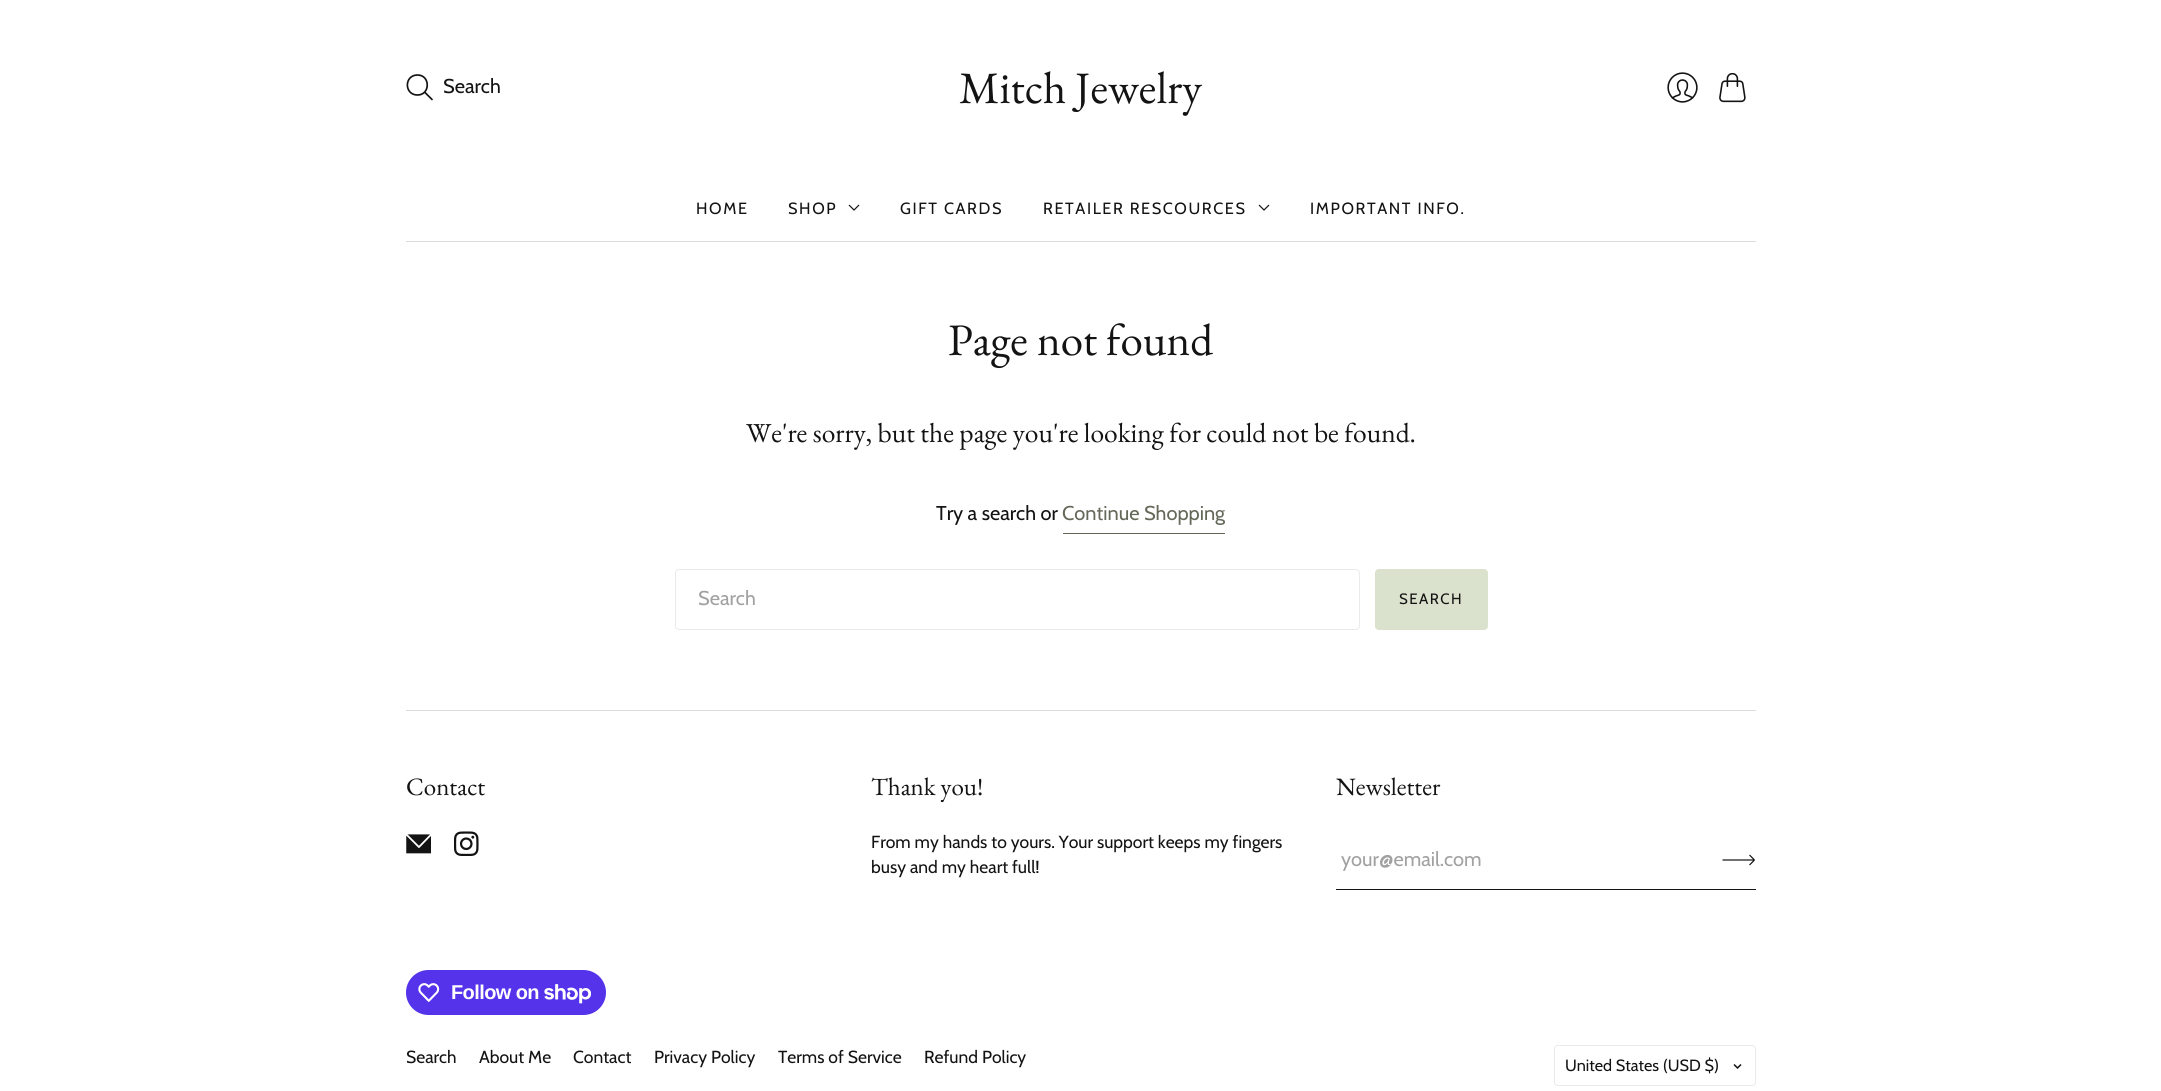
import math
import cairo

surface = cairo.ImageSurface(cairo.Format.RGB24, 2161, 1091)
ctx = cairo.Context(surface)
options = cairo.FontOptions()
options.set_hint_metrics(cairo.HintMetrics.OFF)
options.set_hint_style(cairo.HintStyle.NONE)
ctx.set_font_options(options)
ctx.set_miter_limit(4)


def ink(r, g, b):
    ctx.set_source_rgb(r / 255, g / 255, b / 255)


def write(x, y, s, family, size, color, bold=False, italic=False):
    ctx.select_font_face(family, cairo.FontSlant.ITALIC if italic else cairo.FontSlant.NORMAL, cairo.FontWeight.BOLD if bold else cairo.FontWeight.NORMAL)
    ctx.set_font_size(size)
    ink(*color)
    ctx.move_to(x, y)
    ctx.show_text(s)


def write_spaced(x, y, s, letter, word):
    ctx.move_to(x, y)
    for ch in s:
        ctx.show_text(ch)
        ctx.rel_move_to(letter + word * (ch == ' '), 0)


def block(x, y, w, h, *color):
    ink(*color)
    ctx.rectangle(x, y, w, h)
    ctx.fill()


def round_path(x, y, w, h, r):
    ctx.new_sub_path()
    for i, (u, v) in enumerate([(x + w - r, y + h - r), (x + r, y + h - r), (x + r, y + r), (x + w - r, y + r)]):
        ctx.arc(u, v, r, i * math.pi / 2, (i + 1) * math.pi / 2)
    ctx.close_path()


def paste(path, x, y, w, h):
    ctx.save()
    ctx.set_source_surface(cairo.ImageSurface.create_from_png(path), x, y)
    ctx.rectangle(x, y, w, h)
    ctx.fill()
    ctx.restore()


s1 = dict(family="Cabin", size=20, color=(19, 19, 19))
s2 = dict(family="EB Garamond", size=45, color=(19, 19, 19))
s3 = dict(family="EB Garamond", size=27.5, color=(19, 19, 19))
s4 = dict(family="Cabin", size=20, color=(99, 104, 89))
s5 = dict(family="Cabin", size=20, color=(161, 161, 161))
s6 = dict(family="EB Garamond", size=25, color=(19, 19, 19))
s7 = dict(family="Cabin", size=17.5, color=(19, 19, 19))
s8 = dict(family="Cabin", size=16.25, color=(19, 19, 19))

ink(255, 255, 255)
ctx.paint()
ctx.new_path()
ctx.move_to(417.5, 95)
ctx.curve_to(430.5, 95, 430.5, 75, 417.5, 75)
ctx.curve_to(404, 75, 404, 95, 417.5, 95)
ctx.close_path()
ctx.move_to(432, 99.5)
ctx.line_to(425, 92.5)
ink(19, 19, 19)
ctx.set_line_width(1.7)
ctx.set_line_cap(cairo.LineCap.ROUND)
ctx.set_line_join(cairo.LineJoin.ROUND)
ctx.stroke()
write(443, 93, "Search", **s1)
paste("pic1.png", 1667, 72, 31, 31)
paste("pic2.png", 1719, 73, 27, 30)
block(406, 241, 1350, 1, 220, 220, 220)
write(959, 103, "Mitch Jewelry", **s2)
ctx.select_font_face("Cabin")
ctx.set_font_size(16.25)
write_spaced(696, 214, "HOME", 1.6, 0)
write_spaced(788, 214, "SHOP", 1.6, 0)
ctx.new_path()
ctx.move_to(849, 205)
ctx.line_to(854, 210)
ctx.line_to(859, 205)
ctx.set_line_width(1.2)
ctx.set_line_cap(cairo.LineCap.BUTT)
ctx.set_line_join(cairo.LineJoin.MITER)
ctx.stroke()
write_spaced(900, 214, "GIFT CARDS", 1.6, 0)
write_spaced(1043, 214, "RETAILER RESCOURCES", 1.6, 0)
ctx.new_path()
ctx.move_to(1259, 205)
ctx.line_to(1264, 210)
ctx.line_to(1269, 205)
ctx.stroke()
write_spaced(1310, 214, "IMPORTANT INFO.", 1.6, 0)
write(948, 355, "Page not found", **s2)
write(746, 442, "We're sorry, but the page you're looking for could not be found.", **s3)
write(936, 520, "Try a search or", **s1)
write(1062, 520, "Continue Shopping", **s4)
block(1063, 533, 162, 1, 99, 104, 89)
round_path(675.5, 569.5, 684, 60, 3.5)
ink(234, 234, 234)
ctx.set_line_width(1)
ctx.stroke()
write(698, 605, "Search", **s5)
ink(218, 225, 204)
round_path(1375.5, 569.5, 112, 60, 3.5)
ctx.fill_preserve()
ctx.stroke()
ctx.set_font_size(15)
ink(19, 19, 19)
write_spaced(1399, 604, "SEARCH", 1.5, 0)
block(406, 710, 1350, 1, 220, 220, 220)
write(406, 795, "Contact", **s6)
paste("pic3.png", 406, 834, 25, 20)
paste("pic4.png", 454, 831, 25, 25)
write(871, 795, "Thank you!", **s6)
write(871, 848, "From my hands to yours. Your support keeps my fingers", **s7)
write(871, 873, "busy and my heart full!", **s7)
write(1336, 795, "Newsletter", **s6)
block(1336, 889, 420, 1, 19, 19, 19)
write(1341, 866, "your@email.com", **s5)
ctx.new_path()
ctx.move_to(1722.5, 860)
ctx.line_to(1754.5, 860)
ctx.move_to(1754.5, 860)
ctx.line_to(1749.5, 855)
ctx.move_to(1754.5, 860)
ctx.line_to(1749.5, 865)
ink(19, 19, 19)
ctx.set_line_width(1.2)
ctx.stroke()
ink(84, 51, 235)
round_path(406, 970, 200, 45, 22.5)
ctx.fill()
paste("pic5.png", 418, 983, 22, 19)
ctx.select_font_face("Liberation Sans", cairo.FontSlant.NORMAL, cairo.FontWeight.BOLD)
ink(255, 255, 255)
write_spaced(451, 999, "Follow on", -0.6, 0)
paste("pic6.png", 544, 984, 47, 20)
write(406, 1063, "Search", **s7)
write(479, 1063, "About Me", **s7)
write(573, 1063, "Contact", **s7)
write(654, 1063, "Privacy Policy", **s7)
write(778, 1063, "Terms of Service", **s7)
write(924, 1063, "Refund Policy", **s7)
round_path(1554.5, 1045.5, 201, 40, 3.5)
ink(234, 234, 234)
ctx.set_line_width(1)
ctx.stroke()
write(1565, 1071, "United States (USD $)", **s8)
ctx.new_path()
ctx.move_to(1734, 1064.5)
ctx.line_to(1737.5, 1068)
ctx.line_to(1741, 1064.5)
ctx.set_line_width(1.5)
ctx.stroke()
surface.write_to_png("screenshot.png")
